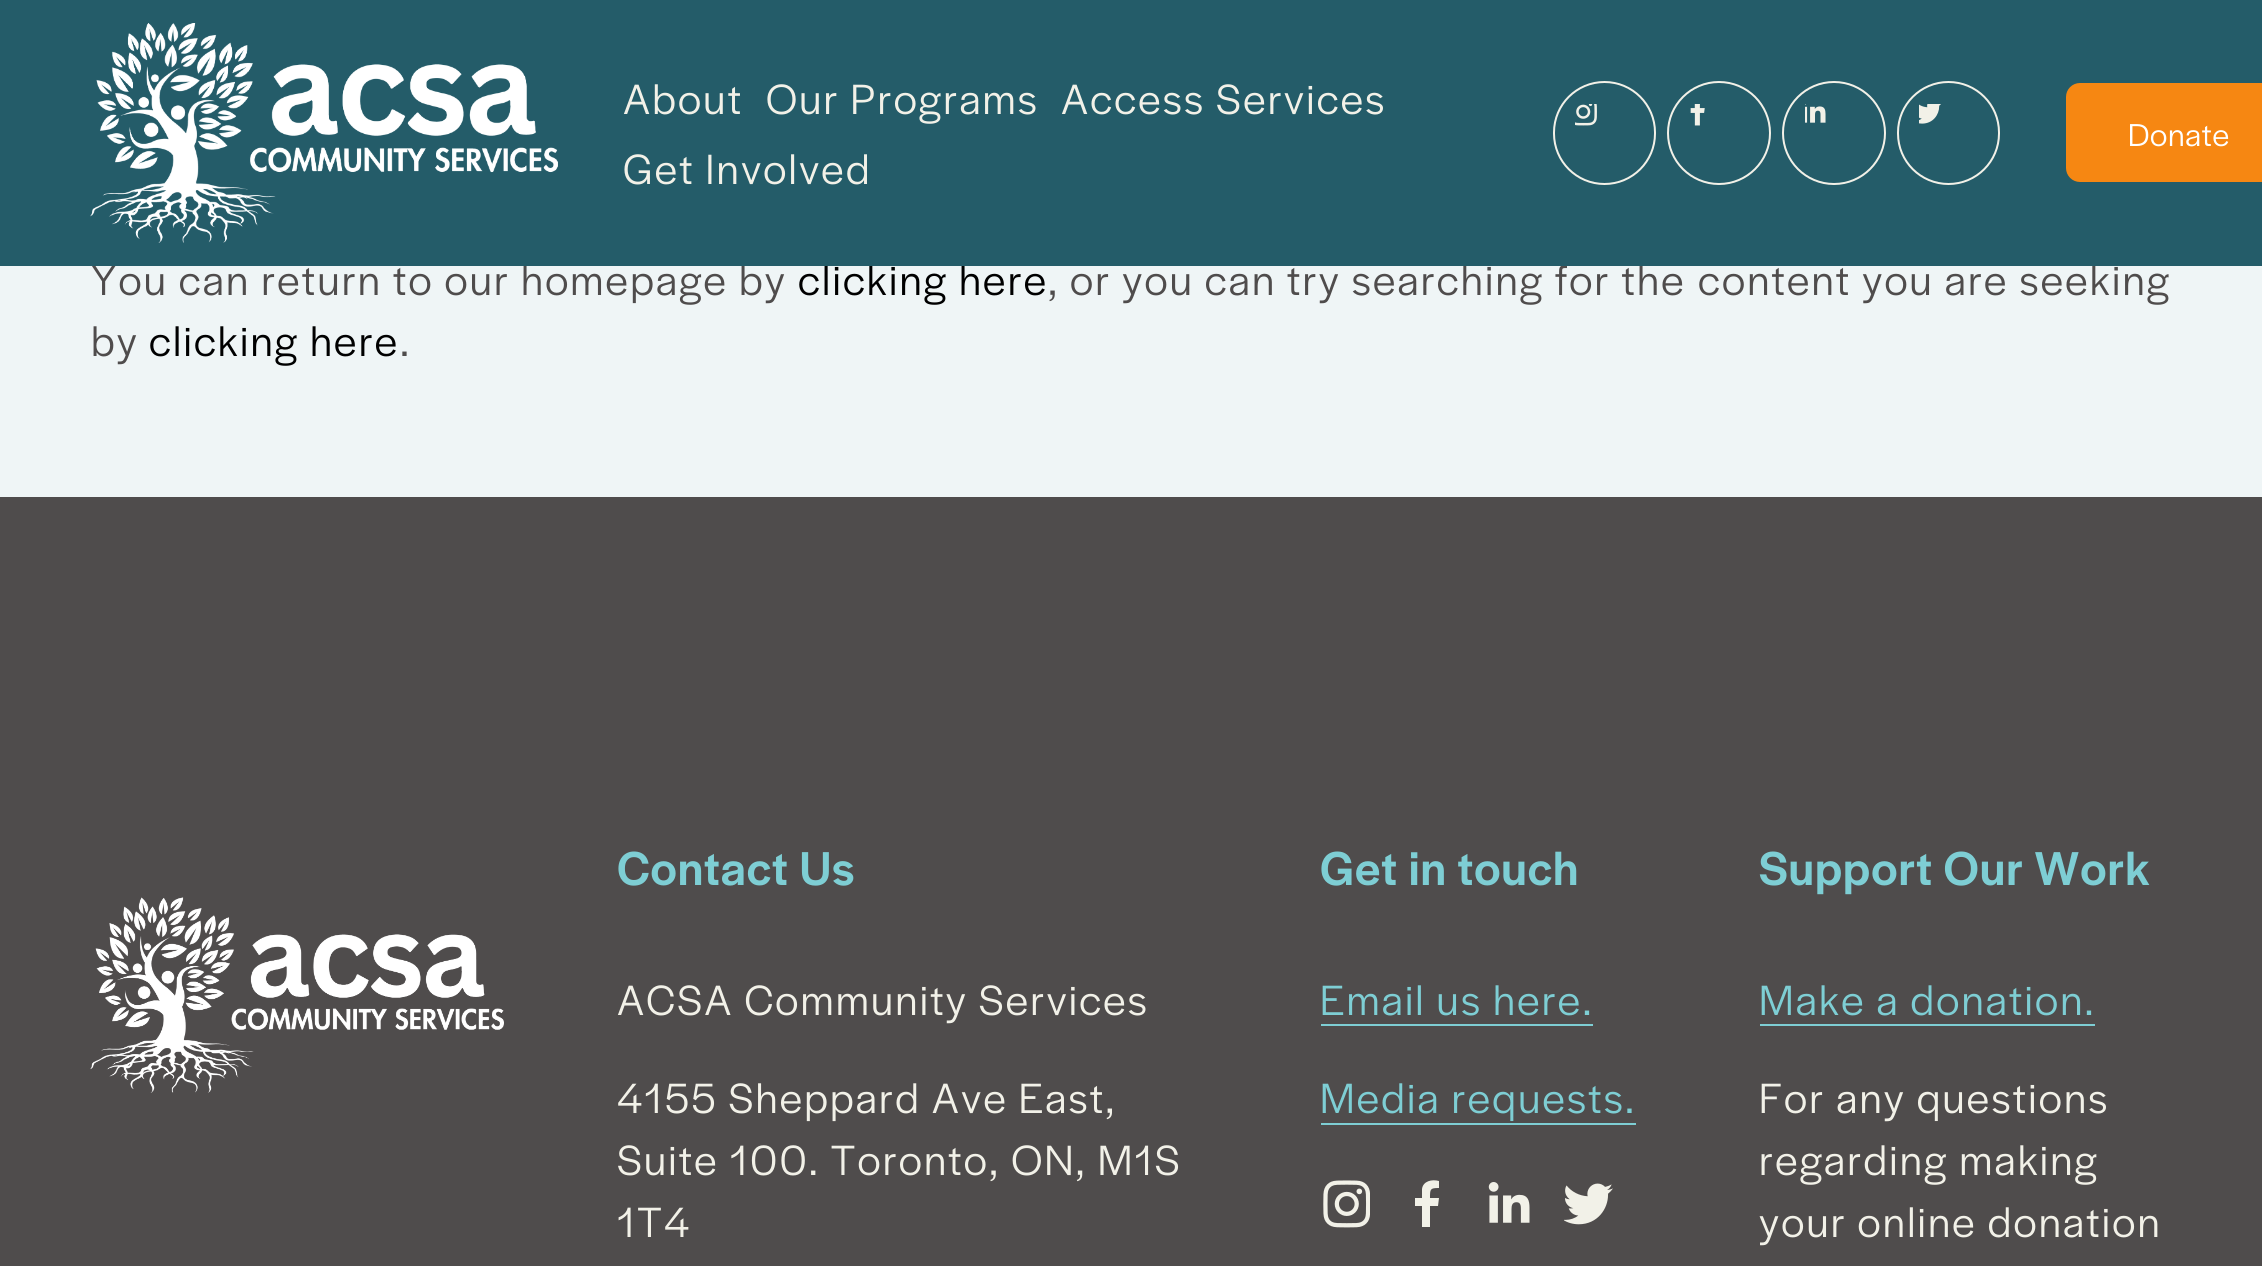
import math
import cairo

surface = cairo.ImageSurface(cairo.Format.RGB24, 2262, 1266)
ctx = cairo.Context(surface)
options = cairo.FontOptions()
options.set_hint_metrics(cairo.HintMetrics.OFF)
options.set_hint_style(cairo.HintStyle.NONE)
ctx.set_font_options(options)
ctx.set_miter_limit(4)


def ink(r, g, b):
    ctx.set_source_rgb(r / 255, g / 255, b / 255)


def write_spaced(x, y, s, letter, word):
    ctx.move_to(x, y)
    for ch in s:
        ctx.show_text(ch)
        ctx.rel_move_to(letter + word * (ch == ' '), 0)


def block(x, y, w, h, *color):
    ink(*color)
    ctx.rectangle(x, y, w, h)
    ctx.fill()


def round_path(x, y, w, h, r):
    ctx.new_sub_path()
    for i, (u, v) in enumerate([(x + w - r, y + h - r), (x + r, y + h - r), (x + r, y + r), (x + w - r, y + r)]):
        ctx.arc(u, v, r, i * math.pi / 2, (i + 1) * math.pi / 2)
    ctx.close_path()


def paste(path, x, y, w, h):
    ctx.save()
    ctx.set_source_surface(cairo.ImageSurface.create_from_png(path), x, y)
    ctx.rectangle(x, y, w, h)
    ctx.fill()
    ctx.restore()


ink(239, 245, 246)
ctx.paint()
ctx.select_font_face("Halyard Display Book")
ctx.set_font_size(44.1)
ink(79, 76, 76)
write_spaced(91, 295, "You can return to our homepage by", 2.2, 0)
ink(0, 0, 0)
write_spaced(798, 295, "clicking here", 2.2, 0)
ink(79, 76, 76)
write_spaced(1048, 295, ", or you can try searching for the", 2.2, 0)
write_spaced(1698, 295, "content you are seeking", 2.2, 0)
block(0, 0, 2262, 266, 36, 92, 105)
paste("pic1.png", 90, 23, 468, 220)
ink(242, 241, 232)
write_spaced(623, 114, "About", 2.2, 0)
write_spaced(766, 114, "Our Programs", 2.2, 0)
write_spaced(1061, 114, "Access Services", 2.2, 0)
write_spaced(623, 184, "Get Involved", 2.2, 0)
round_path(1554, 82, 101, 102, 50.5)
ctx.stroke()
paste("pic2.png", 1575, 104, 22, 22)
ctx.arc(1719, 133, 51, 0, 2 * math.pi)
ctx.stroke()
paste("pic3.png", 1690, 104, 15, 22)
ctx.arc(1834, 133, 51, 0, 2 * math.pi)
ctx.stroke()
paste("pic4.png", 1805, 104, 21, 19)
round_path(1898, 82, 101, 102, 50.5)
ctx.stroke()
paste("pic5.png", 1919, 104, 22, 20)
ink(246, 135, 18)
round_path(2066, 83, 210, 99, 14)
ctx.fill()
ctx.set_font_size(33)
ink(255, 255, 255)
write_spaced(2128, 146, "Donate", 0.75, 0)
ctx.set_font_size(44.1)
ink(79, 76, 76)
write_spaced(91, 356, "by", 2.2, 0)
ink(0, 0, 0)
write_spaced(149, 356, "clicking here", 2.2, 0)
ink(79, 76, 76)
write_spaced(400, 356, ".", 2.2, 0)
block(0, 497, 2262, 769, 79, 76, 76)
paste("pic6.png", 90, 897, 414, 196)
ctx.select_font_face("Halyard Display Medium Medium")
ctx.set_font_size(49.5)
ink(126, 206, 212)
write_spaced(617, 885, "Contact Us", 1, 0)
ctx.select_font_face("Halyard Display Book")
ctx.set_font_size(44.1)
ink(242, 241, 232)
write_spaced(617, 1015, "ACSA Community Services", 2.2, 0)
write_spaced(617, 1113, "4155 Sheppard Ave East,", 2.2, 0)
write_spaced(617, 1175, "Suite 100. Toronto, ON, M1S", 2.2, 0)
write_spaced(617, 1237, "1T4", 2.2, 0)
ctx.select_font_face("Halyard Display Medium Medium")
ctx.set_font_size(49.5)
ink(126, 206, 212)
write_spaced(1320, 885, "Get in touch", 1, 0)
ctx.select_font_face("Halyard Display Book")
ctx.set_font_size(44.1)
write_spaced(1320, 1015, "Email us here.", 2.2, 0)
block(1321, 1024, 272, 2, 126, 206, 212)
write_spaced(1320, 1113, "Media requests.", 2.2, 0)
block(1321, 1123, 315, 2, 126, 206, 212)
ctx.select_font_face("Halyard Display Medium Medium")
ctx.set_font_size(49.5)
write_spaced(1759, 885, "Support Our Work", 1, 0)
ctx.select_font_face("Halyard Display Book")
ctx.set_font_size(44.1)
write_spaced(1759, 1015, "Make a donation.", 2.2, 0)
block(1760, 1024, 335, 2, 126, 206, 212)
ink(242, 241, 232)
write_spaced(1759, 1113, "For any questions", 2.2, 0)
write_spaced(1759, 1175, "regarding making", 2.2, 0)
write_spaced(1759, 1237, "your online donation", 2.2, 0)
paste("pic7.png", 1323, 1180, 47, 48)
ctx.new_path()
ctx.move_to(1430, 1227)
ctx.line_to(1430, 1206)
ctx.line_to(1438, 1206)
ctx.line_to(1439, 1198)
ctx.line_to(1430, 1198)
ctx.curve_to(1430, 1189, 1430, 1188, 1439, 1188)
ctx.line_to(1439, 1181)
ctx.curve_to(1432, 1179, 1423, 1181, 1422, 1189)
ctx.line_to(1422, 1198)
ctx.line_to(1415, 1198)
ctx.line_to(1415, 1206)
ctx.line_to(1422, 1206)
ctx.line_to(1422, 1227)
ctx.close_path()
ctx.fill()
paste("pic8.png", 1488, 1182, 42, 41)
paste("pic9.png", 1564, 1183, 49, 42)
surface.write_to_png("screenshot.png")
